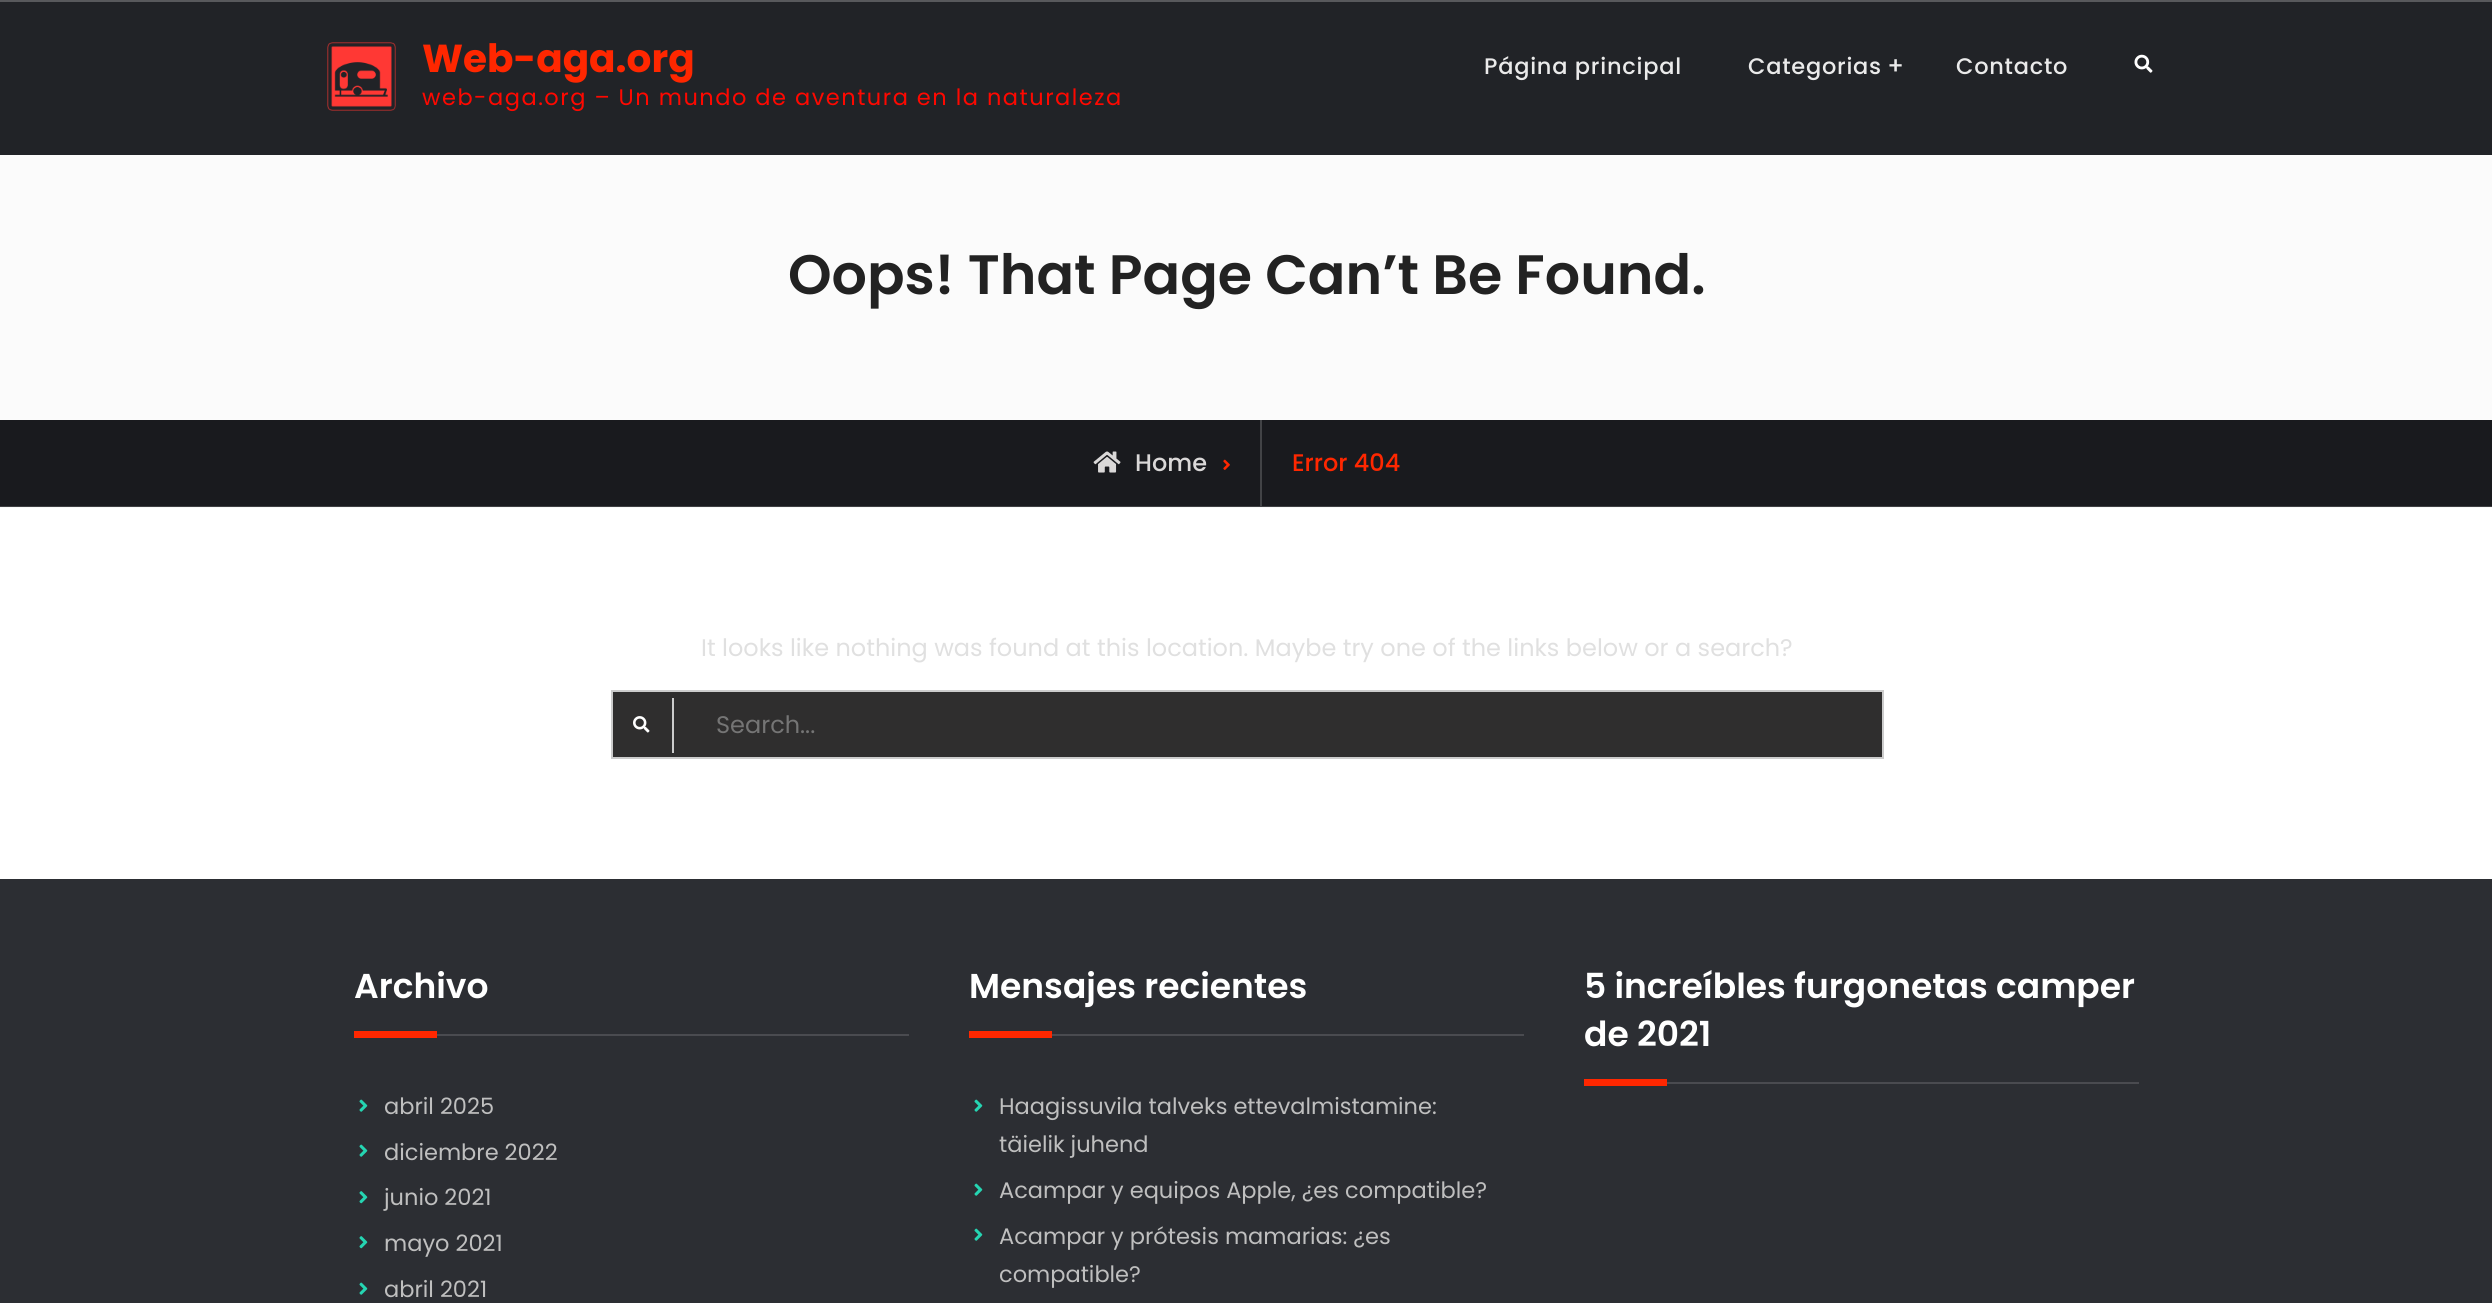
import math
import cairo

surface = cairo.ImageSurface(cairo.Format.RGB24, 2492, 1303)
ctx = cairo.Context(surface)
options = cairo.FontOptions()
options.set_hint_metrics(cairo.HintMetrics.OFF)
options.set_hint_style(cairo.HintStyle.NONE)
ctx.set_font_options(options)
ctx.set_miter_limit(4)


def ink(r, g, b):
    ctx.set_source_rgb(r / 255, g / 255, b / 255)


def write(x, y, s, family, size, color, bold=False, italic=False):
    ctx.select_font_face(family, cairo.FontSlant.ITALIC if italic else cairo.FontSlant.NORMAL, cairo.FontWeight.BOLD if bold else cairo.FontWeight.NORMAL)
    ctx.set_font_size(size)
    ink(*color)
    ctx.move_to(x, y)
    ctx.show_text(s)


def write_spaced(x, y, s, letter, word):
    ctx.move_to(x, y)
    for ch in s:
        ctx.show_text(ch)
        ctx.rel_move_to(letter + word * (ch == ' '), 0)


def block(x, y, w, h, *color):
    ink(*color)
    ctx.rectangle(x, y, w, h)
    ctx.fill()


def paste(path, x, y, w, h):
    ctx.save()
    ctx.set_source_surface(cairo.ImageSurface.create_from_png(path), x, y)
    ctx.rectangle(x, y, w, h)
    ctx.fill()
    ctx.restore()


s1 = dict(family="Poppins", size=39, color=(255, 39, 0), bold=True)
s2 = dict(family="Poppins SemiBold", size=55.5, color=(34, 34, 34))
s3 = dict(family="Poppins Medium", size=24, color=(218, 216, 216))
s4 = dict(family="Poppins Medium", size=24, color=(255, 39, 0))
s5 = dict(family="Poppins", size=24, color=(224, 224, 224))
s6 = dict(family="Poppins", size=24, color=(117, 117, 117))
s7 = dict(family="Poppins SemiBold", size=34.5, color=(255, 255, 255))
s8 = dict(family="Poppins", size=22.5, color=(191, 191, 191))

ink(255, 255, 255)
ctx.paint()
block(0, 507, 2492, 1, 249, 249, 249)
block(0, 2, 2492, 153, 33, 35, 39)
block(0, 0, 2492, 2, 88, 89, 92)
paste("pic1.png", 327, 42, 69, 69)
write(422, 72, "Web-aga.org", **s1)
ctx.select_font_face("Poppins")
ctx.set_font_size(22.5)
ink(255, 8, 0)
write_spaced(422, 105, "web-aga.org – Un mundo de aventura en la naturaleza", 1.5, 0)
ctx.select_font_face("Poppins Medium")
ink(234, 234, 234)
write_spaced(1484, 74, "Página principal", 0.75, 0)
write_spaced(1748, 74, "Categorias", 0.75, 0)
ctx.set_font_size(24)
write_spaced(1887, 74, "+", 0.75, 0)
ctx.set_font_size(22.5)
write_spaced(1956, 74, "Contacto", 0.75, 0)
paste("pic2.png", 2134, 54, 19, 19)
block(0, 155, 2492, 265, 251, 251, 251)
write(788, 294, "Oops! That Page Can’t Be Found.", **s2)
block(0, 420, 2492, 86, 25, 26, 30)
block(0, 506, 2492, 1, 62, 63, 66)
block(1260, 420, 2, 86, 66, 67, 70)
paste("pic3.png", 1093, 451, 28, 22)
write(1135, 471, "Home", **s3)
paste("pic4.png", 1223, 459, 7, 11)
write(1292, 471, "Error 404", **s4)
write(701, 656, "It looks like nothing was found at this location. Maybe try one of the links below or a search?", **s5)
ink(47, 46, 46)
ctx.rectangle(612, 691, 1271, 67)
ctx.fill_preserve()
ink(204, 204, 204)
ctx.stroke()
block(672, 698, 2, 55, 204, 204, 204)
paste("pic5.png", 633, 716, 17, 17)
write(716, 733, "Search...", **s6)
block(0, 879, 2492, 424, 44, 46, 51)
block(437, 1034, 472, 2, 74, 75, 80)
write(354, 998, "Archivo", **s7)
block(354, 1031, 83, 7, 255, 39, 0)
paste("pic6.png", 359, 1099, 9, 13)
write(384, 1114, "abril 2025", **s8)
paste("pic6.png", 359, 1144, 9, 13)
write(384, 1160, "diciembre 2022", **s8)
paste("pic7.png", 359, 1191, 9, 13)
write(384, 1205, "junio 2021", **s8)
paste("pic7.png", 359, 1236, 9, 13)
write(384, 1251, "mayo 2021", **s8)
paste("pic6.png", 359, 1282, 9, 13)
write(384, 1297, "abril 2021", **s8)
block(1052, 1034, 472, 2, 74, 75, 80)
write(969, 998, "Mensajes recientes", **s7)
block(969, 1031, 83, 7, 255, 39, 0)
paste("pic6.png", 974, 1099, 9, 13)
write(999, 1114, "Haagissuvila talveks ettevalmistamine:", **s8)
write(999, 1152, "täielik juhend", **s8)
paste("pic6.png", 974, 1183, 9, 13)
write(999, 1198, "Acampar y equipos Apple, ¿es compatible?", **s8)
paste("pic6.png", 974, 1228, 9, 13)
write(999, 1244, "Acampar y prótesis mamarias: ¿es", **s8)
write(999, 1282, "compatible?", **s8)
block(1667, 1082, 472, 2, 74, 75, 80)
write(1584, 998, "5 increíbles furgonetas camper", **s7)
write(1584, 1046, "de 2021", **s7)
block(1584, 1079, 83, 7, 255, 39, 0)
surface.write_to_png("screenshot.png")
